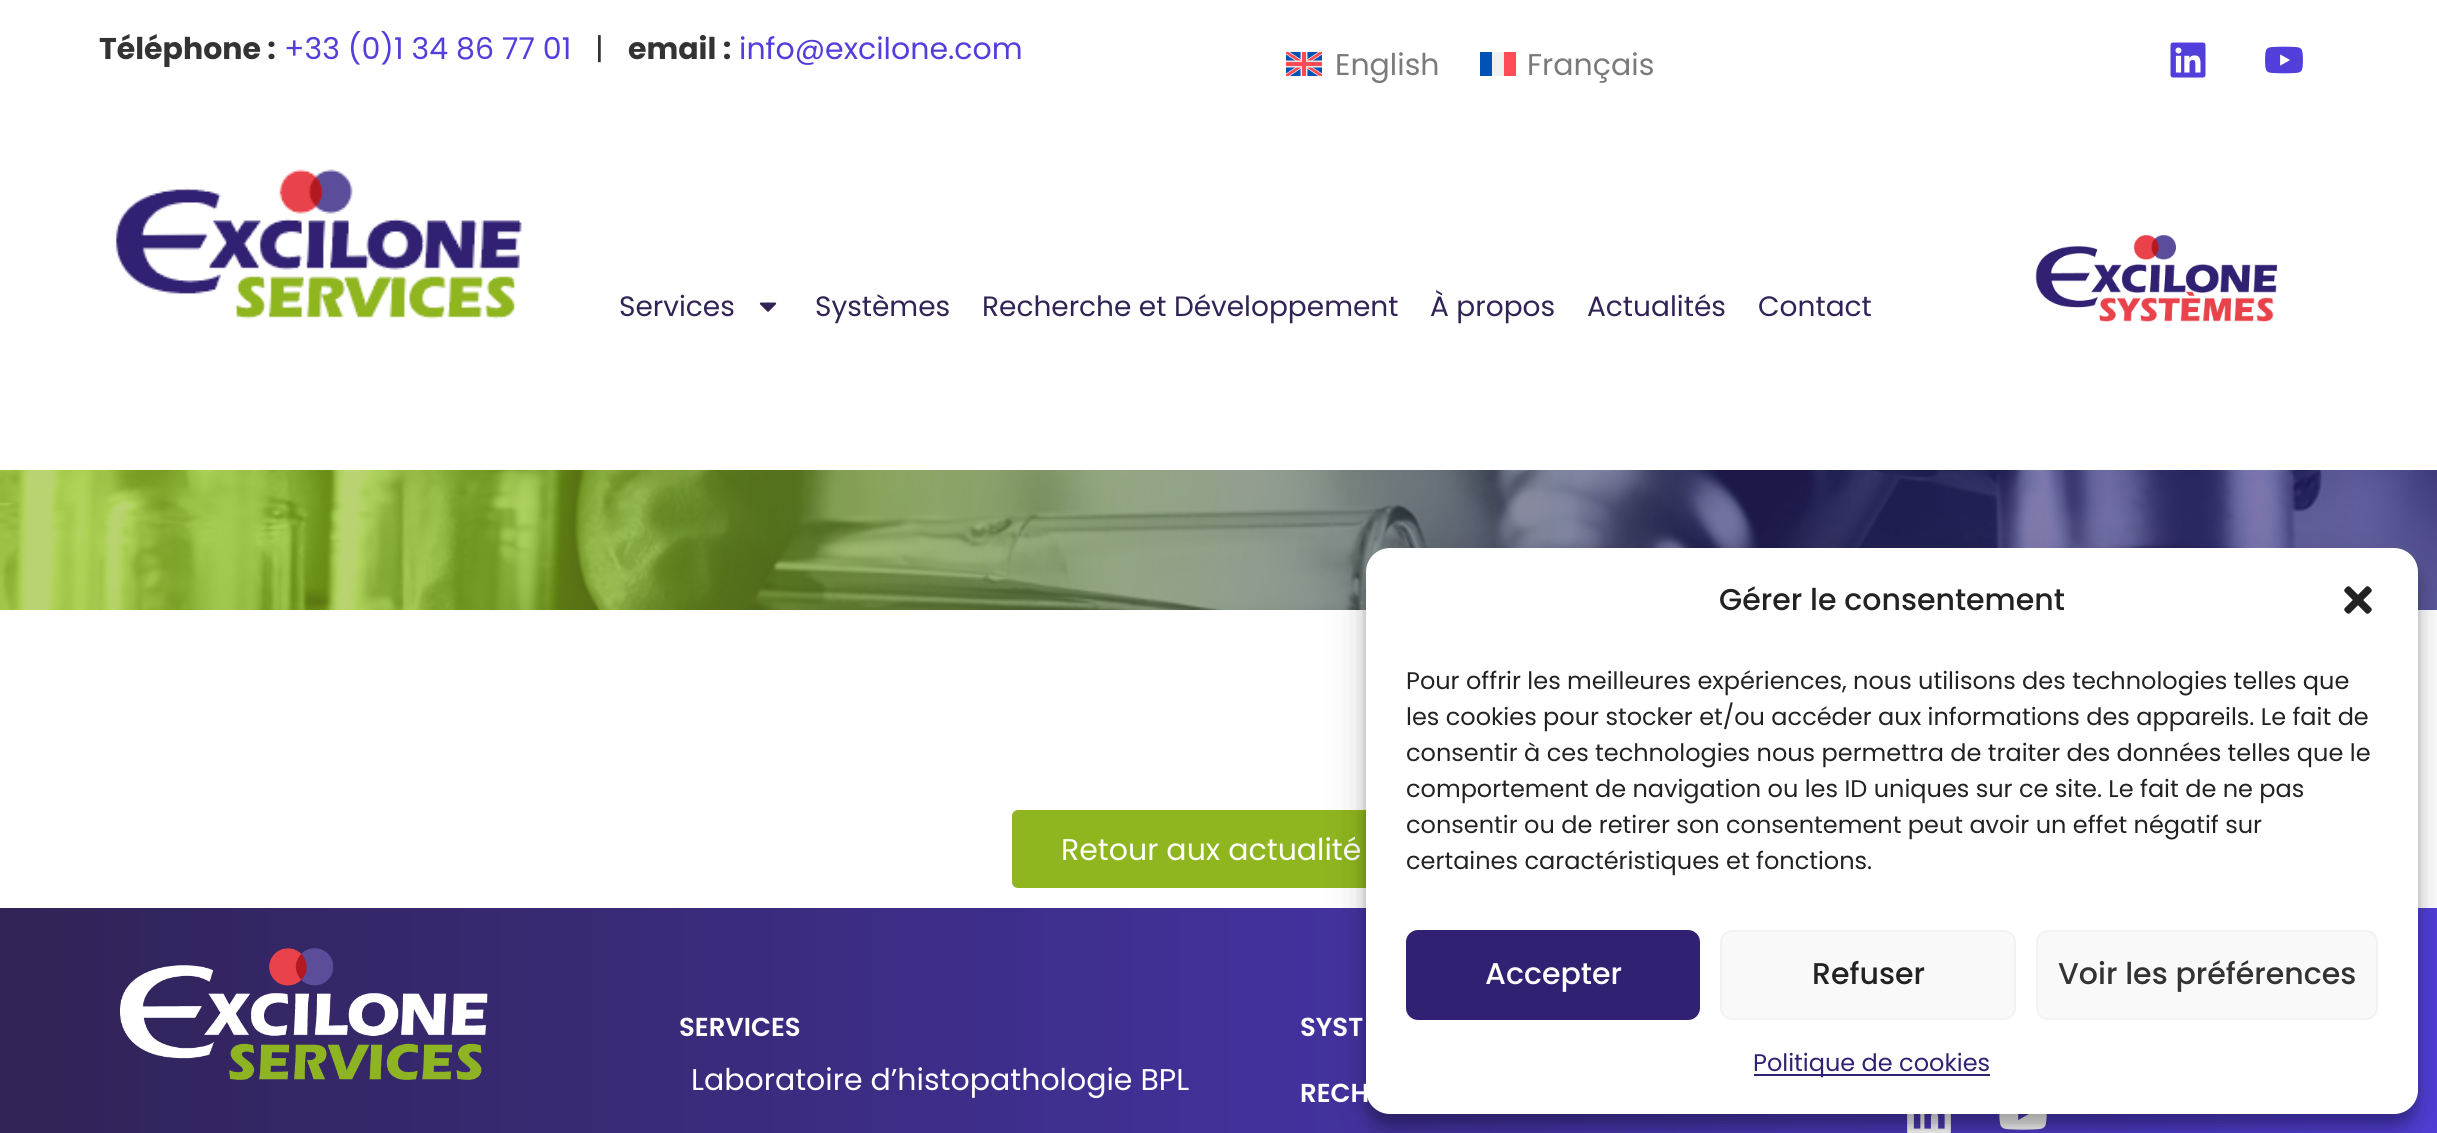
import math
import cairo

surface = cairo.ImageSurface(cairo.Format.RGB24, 2437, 1133)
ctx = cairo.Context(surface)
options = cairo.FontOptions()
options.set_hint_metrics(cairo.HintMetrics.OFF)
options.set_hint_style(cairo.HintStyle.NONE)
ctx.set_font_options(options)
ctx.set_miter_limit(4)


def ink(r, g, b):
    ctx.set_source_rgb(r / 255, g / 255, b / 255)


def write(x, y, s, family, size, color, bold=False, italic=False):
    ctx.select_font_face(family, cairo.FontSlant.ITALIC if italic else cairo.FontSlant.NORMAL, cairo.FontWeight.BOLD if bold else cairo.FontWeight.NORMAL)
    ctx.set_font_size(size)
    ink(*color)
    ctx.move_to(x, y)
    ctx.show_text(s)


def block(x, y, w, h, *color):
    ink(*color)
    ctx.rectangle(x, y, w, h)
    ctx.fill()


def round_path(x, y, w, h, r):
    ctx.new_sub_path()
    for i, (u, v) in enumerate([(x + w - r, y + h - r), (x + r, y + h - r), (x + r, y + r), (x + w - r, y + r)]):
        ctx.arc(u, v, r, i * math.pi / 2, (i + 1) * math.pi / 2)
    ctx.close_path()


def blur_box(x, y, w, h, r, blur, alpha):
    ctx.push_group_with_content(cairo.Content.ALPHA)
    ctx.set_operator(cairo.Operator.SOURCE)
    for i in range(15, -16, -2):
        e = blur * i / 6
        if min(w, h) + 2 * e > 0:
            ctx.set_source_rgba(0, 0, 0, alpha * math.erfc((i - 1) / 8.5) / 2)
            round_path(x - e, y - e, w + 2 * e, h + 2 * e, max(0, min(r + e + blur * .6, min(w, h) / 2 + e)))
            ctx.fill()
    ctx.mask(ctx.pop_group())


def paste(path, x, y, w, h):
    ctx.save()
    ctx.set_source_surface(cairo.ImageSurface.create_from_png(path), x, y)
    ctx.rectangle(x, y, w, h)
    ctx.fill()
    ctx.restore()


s1 = dict(family="Poppins", size=30, color=(51, 51, 51), bold=True)
s2 = dict(family="Poppins", size=30, color=(82, 63, 219))
s3 = dict(family="Poppins", size=30, color=(51, 51, 51))
s4 = dict(family="Poppins", size=30, color=(122, 122, 122))
s5 = dict(family="Poppins", size=28, color=(49, 35, 86))
s6 = dict(family="Poppins", size=30, color=(255, 255, 255))
s7 = dict(family="Poppins Medium", size=30, color=(34, 34, 34))
s8 = dict(family="Poppins", size=24, color=(34, 34, 34))
s9 = dict(family="Poppins Medium", size=30, color=(255, 255, 255))
s10 = dict(family="Poppins Medium", size=30, color=(51, 51, 51))
s11 = dict(family="Poppins", size=24, color=(50, 33, 115))
s12 = dict(family="Poppins SemiBold", size=26, color=(255, 255, 255))

ink(255, 255, 255)
ctx.paint()
write(99, 59, "Téléphone :", **s1)
write(284, 59, "+33 (0)1 34 86 77 01", **s2)
write(595, 59, "|", **s3)
write(628, 59, "email :", **s1)
write(739, 59, "info@excilone.com", **s2)
paste("pic1.png", 1286, 52, 36, 24)
write(1335, 75, "English", **s4)
block(1480, 52, 12, 24, 0, 82, 180)
block(1492, 52, 12, 24, 240, 240, 240)
block(1504, 52, 12, 24, 255, 75, 85)
write(1527, 75, "Français", **s4)
paste("pic2.png", 2170, 42, 36, 36)
paste("pic3.png", 2265, 46, 38, 28)
paste("pic4.png", 115, 169, 407, 150)
write(619, 316, "Services", **s5)
paste("pic5.png", 759, 302, 18, 10)
write(815, 316, "Systèmes", **s5)
write(982, 316, "Recherche et Développement", **s5)
write(1430, 316, "À propos", **s5)
write(1587, 316, "Actualités", **s5)
write(1758, 316, "Contact", **s5)
paste("pic6.png", 2035, 235, 243, 87)
paste("pic7.png", 0, 470, 2437, 140)
ink(143, 181, 31)
round_path(1012, 810, 414, 78, 6)
ctx.fill()
write(1061, 860, "Retour aux actualité", **s6)
gradient = cairo.LinearGradient(0, 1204, 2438, 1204)
gradient.add_color_stop_rgba(0, 0.192, 0.137, 0.337, 1)
gradient.add_color_stop_rgba(1, 0.318, 0.243, 0.847, 1)
ctx.set_source(gradient)
ctx.rectangle(0, 908, 2437, 225)
ctx.fill()
paste("pic10.png", 1907, 1114, 44, 19)
paste("pic11.png", 1999, 1114, 48, 16)
ink(0, 0, 0)
blur_box(1366, 560, 1052, 566, 24, 6, 0.23)
blur_box(1366, 568, 1052, 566, 24, 20, 0.19)
ink(255, 255, 255)
round_path(1366, 548, 1052, 566, 24)
ctx.fill()
write(1719, 610, "Gérer le consentement", **s7)
paste("pic8.png", 2344, 586, 28, 28)
write(1406, 689, "Pour offrir les meilleures expériences, nous utilisons des technologies telles que", **s8)
write(1406, 725, "les cookies pour stocker et/ou accéder aux informations des appareils. Le fait de", **s8)
write(1406, 761, "consentir à ces technologies nous permettra de traiter des données telles que le", **s8)
write(1406, 797, "comportement de navigation ou les ID uniques sur ce site. Le fait de ne pas", **s8)
write(1406, 833, "consentir ou de retirer son consentement peut avoir un effet négatif sur", **s8)
write(1406, 869, "certaines caractéristiques et fonctions.", **s8)
ink(50, 33, 115)
round_path(1407, 931, 292, 88, 11)
ctx.fill_preserve()
ctx.stroke()
write(1485, 984, "Accepter", **s9)
ink(249, 249, 249)
round_path(1721, 931, 294, 88, 11)
ctx.fill_preserve()
ink(242, 242, 242)
ctx.stroke()
write(1812, 984, "Refuser", **s7)
ink(249, 249, 249)
round_path(2037, 931, 340, 88, 11)
ctx.fill_preserve()
ink(242, 242, 242)
ctx.stroke()
write(2058, 984, "Voir les préférences", **s10)
block(1754, 1074, 236, 2, 50, 33, 115)
write(1753, 1071, "Politique de cookies", **s11)
paste("pic9.png", 120, 948, 368, 132)
write(679, 1036, "SERVICES", **s12)
write(691, 1090, "Laboratoire d’histopathologie BPL", **s6)
write(1300, 1036, "SYST", **s12)
write(1300, 1102, "RECH", **s12)
surface.write_to_png("screenshot.png")
